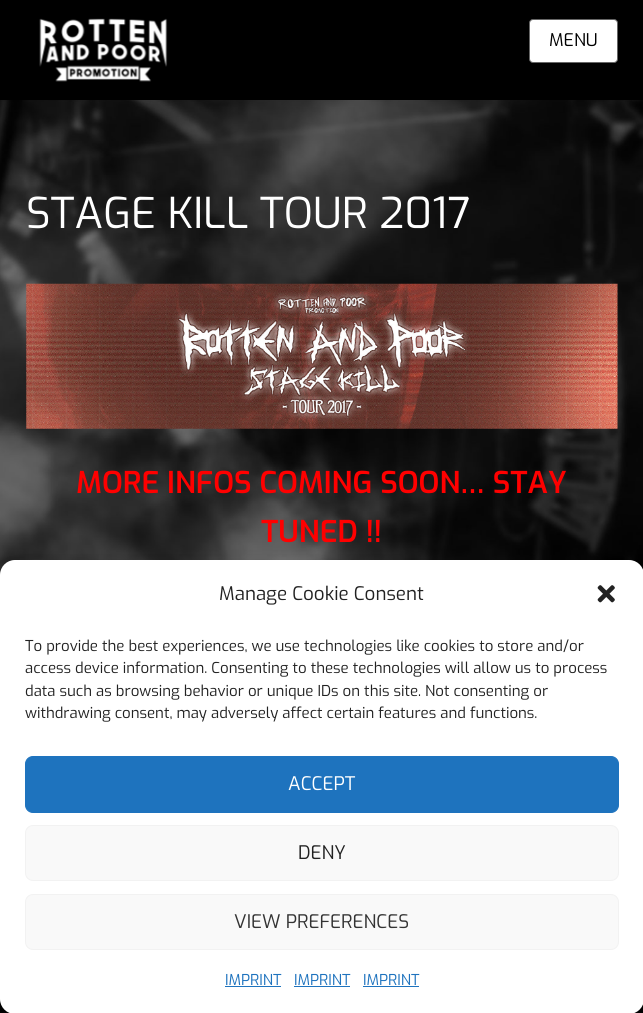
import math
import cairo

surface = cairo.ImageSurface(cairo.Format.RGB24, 643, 1013)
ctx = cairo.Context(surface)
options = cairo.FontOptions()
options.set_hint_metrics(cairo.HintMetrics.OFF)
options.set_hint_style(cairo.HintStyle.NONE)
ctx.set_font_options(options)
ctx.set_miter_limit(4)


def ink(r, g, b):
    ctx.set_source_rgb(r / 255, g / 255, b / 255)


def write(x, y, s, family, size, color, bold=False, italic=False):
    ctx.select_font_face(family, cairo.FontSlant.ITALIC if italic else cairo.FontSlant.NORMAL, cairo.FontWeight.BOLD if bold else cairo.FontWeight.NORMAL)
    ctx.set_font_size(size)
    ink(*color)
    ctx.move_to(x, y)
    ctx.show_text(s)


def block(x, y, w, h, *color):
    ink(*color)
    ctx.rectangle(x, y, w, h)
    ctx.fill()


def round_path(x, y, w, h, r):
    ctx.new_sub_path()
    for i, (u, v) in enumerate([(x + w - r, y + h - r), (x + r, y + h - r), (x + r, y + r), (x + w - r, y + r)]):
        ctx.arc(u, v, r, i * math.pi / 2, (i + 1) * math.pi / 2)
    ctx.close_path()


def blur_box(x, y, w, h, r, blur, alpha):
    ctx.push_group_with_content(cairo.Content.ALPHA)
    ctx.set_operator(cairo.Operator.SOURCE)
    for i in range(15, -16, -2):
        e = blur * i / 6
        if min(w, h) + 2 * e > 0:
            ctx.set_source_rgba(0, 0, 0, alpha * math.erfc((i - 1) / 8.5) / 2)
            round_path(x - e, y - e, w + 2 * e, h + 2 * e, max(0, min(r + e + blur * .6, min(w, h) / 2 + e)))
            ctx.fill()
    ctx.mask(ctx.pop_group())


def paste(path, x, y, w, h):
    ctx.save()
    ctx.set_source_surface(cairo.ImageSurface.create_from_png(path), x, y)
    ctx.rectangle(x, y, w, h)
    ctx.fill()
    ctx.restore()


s1 = dict(family="Exo", size=17.5, color=(0, 0, 0))
s2 = dict(family="Exo", size=42.5, color=(255, 255, 255))
s3 = dict(family="Exo SemiBold", size=30, color=(255, 0, 0))
s4 = dict(family="Exo", size=18.75, color=(34, 34, 34))
s5 = dict(family="Exo", size=15, color=(34, 34, 34))
s6 = dict(family="Exo", size=18.75, color=(255, 255, 255))
s7 = dict(family="Exo", size=18.75, color=(51, 51, 51))
s8 = dict(family="Exo", size=15, color=(30, 115, 190))

ink(255, 255, 255)
ctx.paint()
paste("pic1.png", 0, 100, 643, 913)
block(0, 0, 643, 100, 0, 0, 0)
paste("pic2.png", 39, 18, 129, 64)
ink(255, 255, 255)
round_path(529.5, 19.5, 88, 43, 3.5)
ctx.fill_preserve()
ink(102, 102, 102)
ctx.set_line_width(1)
ctx.stroke()
write(549, 46, "MENU", **s1)
write(26, 228, "STAGE KILL TOUR 2017", **s2)
paste("pic3.png", 26, 283, 592, 146)
write(76, 493, "MORE INFOS COMING SOON… STAY", **s3)
write(261, 542, "TUNED !!", **s3)
ink(0, 0, 0)
blur_box(0, 573, 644, 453, 15, 12.5, 0.19)
ink(255, 255, 255)
round_path(0, 560, 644, 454, 15)
ctx.fill()
write(219, 600, "Manage Cookie Consent", **s4)
paste("pic4.png", 597, 585, 18, 18)
write(25, 651, "To provide the best experiences, we use technologies like cookies to store and/or", **s5)
write(25, 673, "access device information. Consenting to these technologies will allow us to process", **s5)
write(25, 696, "data such as browsing behavior or unique IDs on this site. Not consenting or", **s5)
write(25, 718, "withdrawing consent, may adversely affect certain features and functions.", **s5)
ink(30, 115, 190)
round_path(25.5, 756.5, 593, 56, 7.5)
ctx.fill_preserve()
ctx.stroke()
write(288, 790, "ACCEPT", **s6)
ink(249, 249, 249)
round_path(25.5, 825.5, 593, 55, 7.5)
ctx.fill_preserve()
ink(242, 242, 242)
ctx.stroke()
write(298, 859, "DENY", **s4)
ink(249, 249, 249)
round_path(25.5, 894.5, 593, 55, 7.5)
ctx.fill_preserve()
ink(242, 242, 242)
ctx.stroke()
write(234, 928, "VIEW PREFERENCES", **s7)
write(225, 985, "IMPRINT", **s8)
block(225, 986, 56, 1, 30, 115, 190)
write(294, 985, "IMPRINT", **s8)
block(294, 986, 56, 1, 30, 115, 190)
write(363, 985, "IMPRINT", **s8)
block(363, 986, 56, 1, 30, 115, 190)
surface.write_to_png("screenshot.png")
